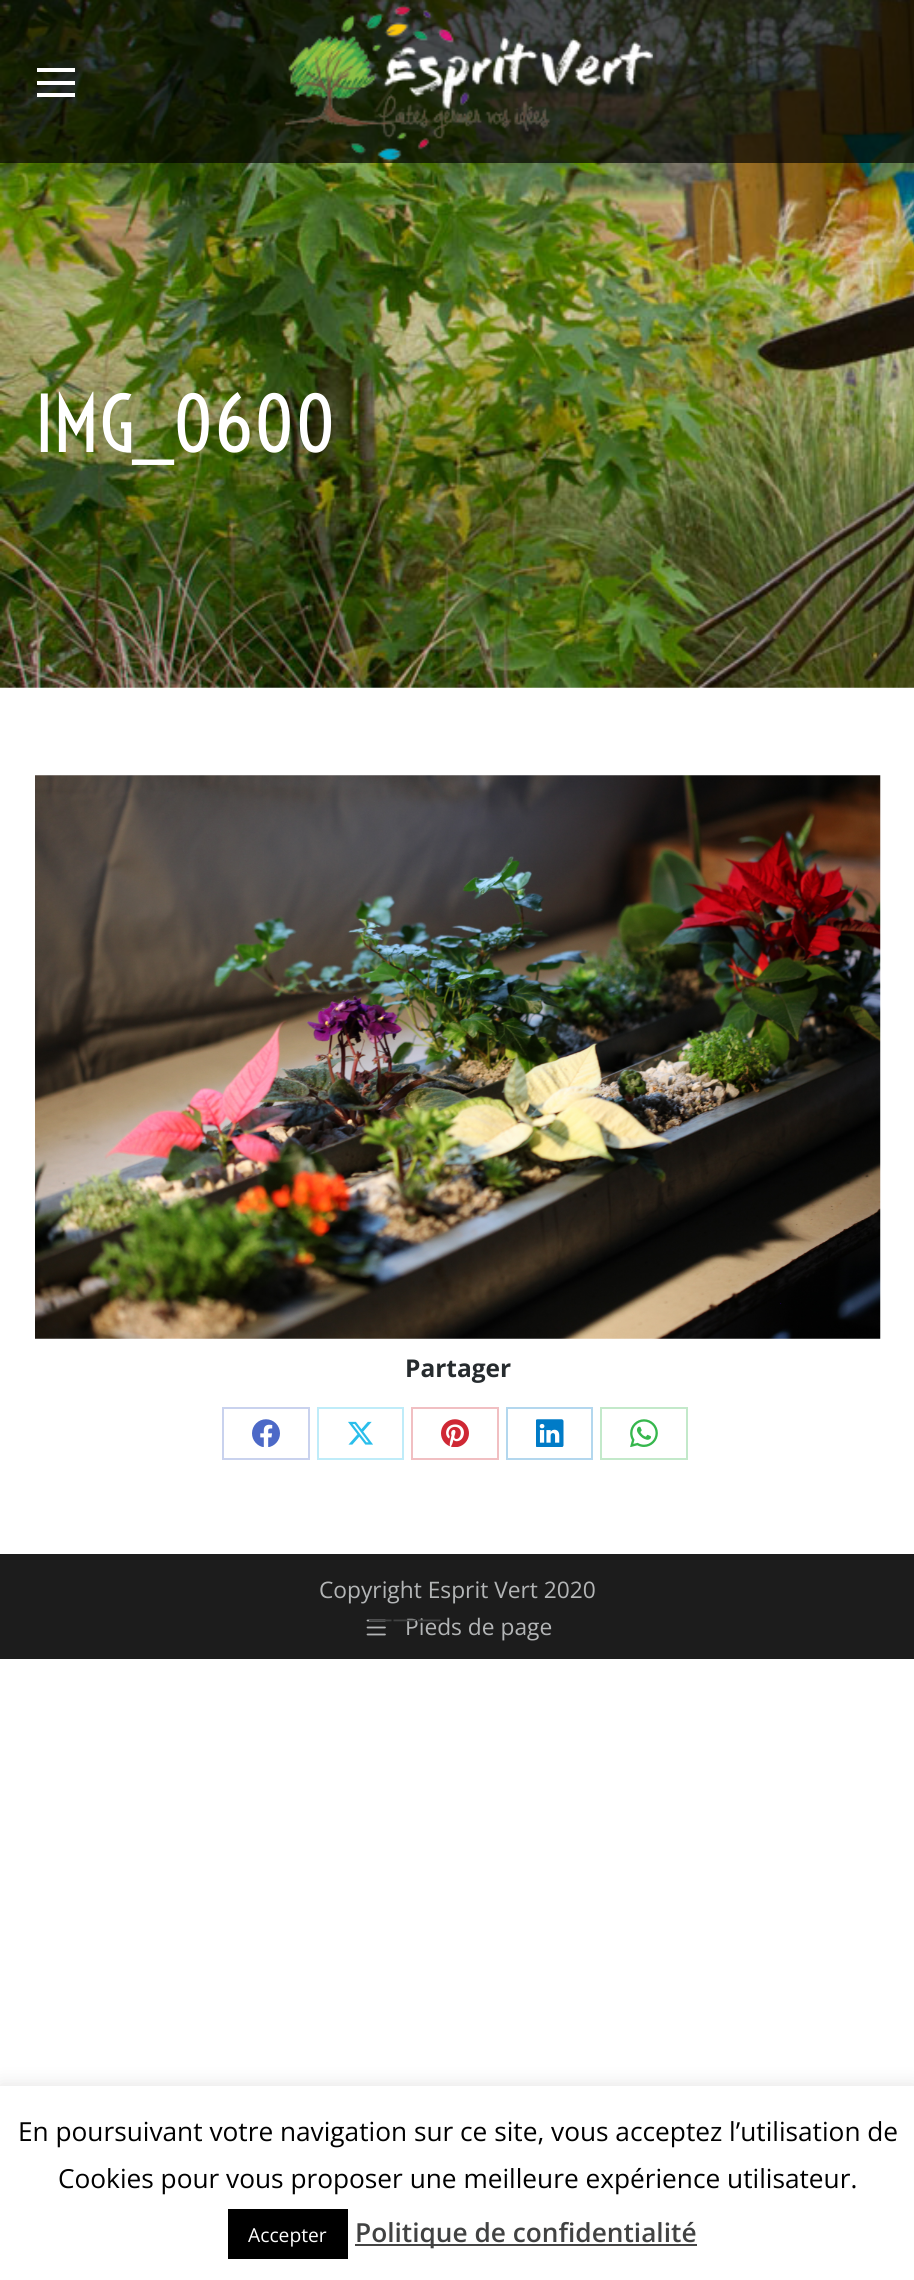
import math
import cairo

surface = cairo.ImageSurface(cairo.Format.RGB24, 914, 2280)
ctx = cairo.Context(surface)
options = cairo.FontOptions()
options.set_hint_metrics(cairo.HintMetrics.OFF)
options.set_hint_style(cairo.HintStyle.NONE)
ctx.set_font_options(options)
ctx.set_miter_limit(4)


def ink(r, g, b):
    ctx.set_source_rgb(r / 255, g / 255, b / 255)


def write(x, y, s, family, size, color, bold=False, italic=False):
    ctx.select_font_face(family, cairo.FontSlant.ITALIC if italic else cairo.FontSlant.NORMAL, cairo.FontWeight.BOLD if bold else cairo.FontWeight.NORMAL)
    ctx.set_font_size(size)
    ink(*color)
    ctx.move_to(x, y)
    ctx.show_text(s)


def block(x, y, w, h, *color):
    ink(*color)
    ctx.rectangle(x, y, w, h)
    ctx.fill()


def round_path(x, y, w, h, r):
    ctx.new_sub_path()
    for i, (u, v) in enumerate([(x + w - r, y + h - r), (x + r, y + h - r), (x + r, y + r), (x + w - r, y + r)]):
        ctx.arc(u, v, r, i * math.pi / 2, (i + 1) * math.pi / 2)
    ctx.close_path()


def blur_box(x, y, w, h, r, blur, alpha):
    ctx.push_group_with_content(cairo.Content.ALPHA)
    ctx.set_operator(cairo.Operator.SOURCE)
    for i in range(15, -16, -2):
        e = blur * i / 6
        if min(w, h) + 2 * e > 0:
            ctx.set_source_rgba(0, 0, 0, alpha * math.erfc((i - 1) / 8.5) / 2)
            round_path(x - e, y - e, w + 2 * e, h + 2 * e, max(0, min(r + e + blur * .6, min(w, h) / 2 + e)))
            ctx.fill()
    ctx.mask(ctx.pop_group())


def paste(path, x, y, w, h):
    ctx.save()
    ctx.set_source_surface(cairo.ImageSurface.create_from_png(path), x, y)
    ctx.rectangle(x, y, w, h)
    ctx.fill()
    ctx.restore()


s1 = dict(family="Voltaire", size=75.25, color=(255, 255, 255))
s2 = dict(family="Open Sans", size=24.5, color=(38, 43, 46), bold=True)
s3 = dict(family="Open Sans", size=22.75, color=(179, 181, 182))
s4 = dict(family="Open Sans", size=24.5, color=(65, 66, 66))
s5 = dict(family="Open Sans", size=26.25, color=(0, 0, 0))
s6 = dict(family="Open Sans", size=19.25, color=(255, 255, 255))
s7 = dict(family="Open Sans SemiBold", size=26.25, color=(65, 66, 66))

ink(255, 255, 255)
ctx.paint()
paste("pic2.png", 0, 0, 914, 688)
ctx.set_source_rgba(0, 0, 0, 0.68)
ctx.rectangle(0, 0, 914, 163)
ctx.fill()
block(37, 68, 38, 4, 255, 255, 255)
block(37, 81, 38, 4, 255, 255, 255)
block(37, 93, 38, 4, 255, 255, 255)
paste("pic1.png", 285, 5, 368, 157)
write(35, 452, "IMG_0600", **s1)
paste("pic3.png", 35, 775, 846, 564)
write(405, 1377, "Partager", **s2)
ctx.rectangle(223, 1408, 86, 51)
ink(201, 210, 238)
ctx.stroke()
paste("pic4.png", 252, 1419, 28, 28)
ctx.rectangle(318, 1408, 85, 51)
ink(191, 236, 249)
ctx.stroke()
paste("pic5.png", 348, 1421, 25, 24)
ctx.rectangle(412, 1408, 86, 51)
ink(241, 191, 194)
ctx.stroke()
paste("pic6.png", 441, 1419, 28, 28)
ctx.rectangle(507, 1408, 85, 51)
ink(179, 215, 238)
ctx.stroke()
paste("pic7.png", 536, 1419, 28, 28)
ctx.rectangle(601, 1408, 86, 51)
ink(195, 233, 202)
ctx.stroke()
paste("pic8.png", 630, 1419, 28, 28)
block(0, 1554, 914, 105, 28, 28, 28)
write(319, 1598, "Copyright Esprit Vert 2020", **s3)
paste("pic9.png", 366, 1619, 20, 17)
write(405, 1635, "Pieds de page", **s3)
write(368, 1627, "———", **s4)
ink(172, 171, 171)
blur_box(0, 2084, 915, 195, 0, 9, 0.3)
block(0, 2086, 914, 194, 255, 255, 255)
write(18, 2141, "En poursuivant votre navigation sur ce site, vous acceptez l’utilisation de", **s5)
write(58, 2188, "Cookies pour vous proposer une meilleure expérience utilisateur.", **s5)
block(228, 2209, 120, 50, 0, 0, 0)
write(248, 2242, "Accepter", **s6)
block(355, 2244, 342, 2, 68, 68, 68)
write(355, 2242, "Politique de confidentialité", **s7)
surface.write_to_png("screenshot.png")
